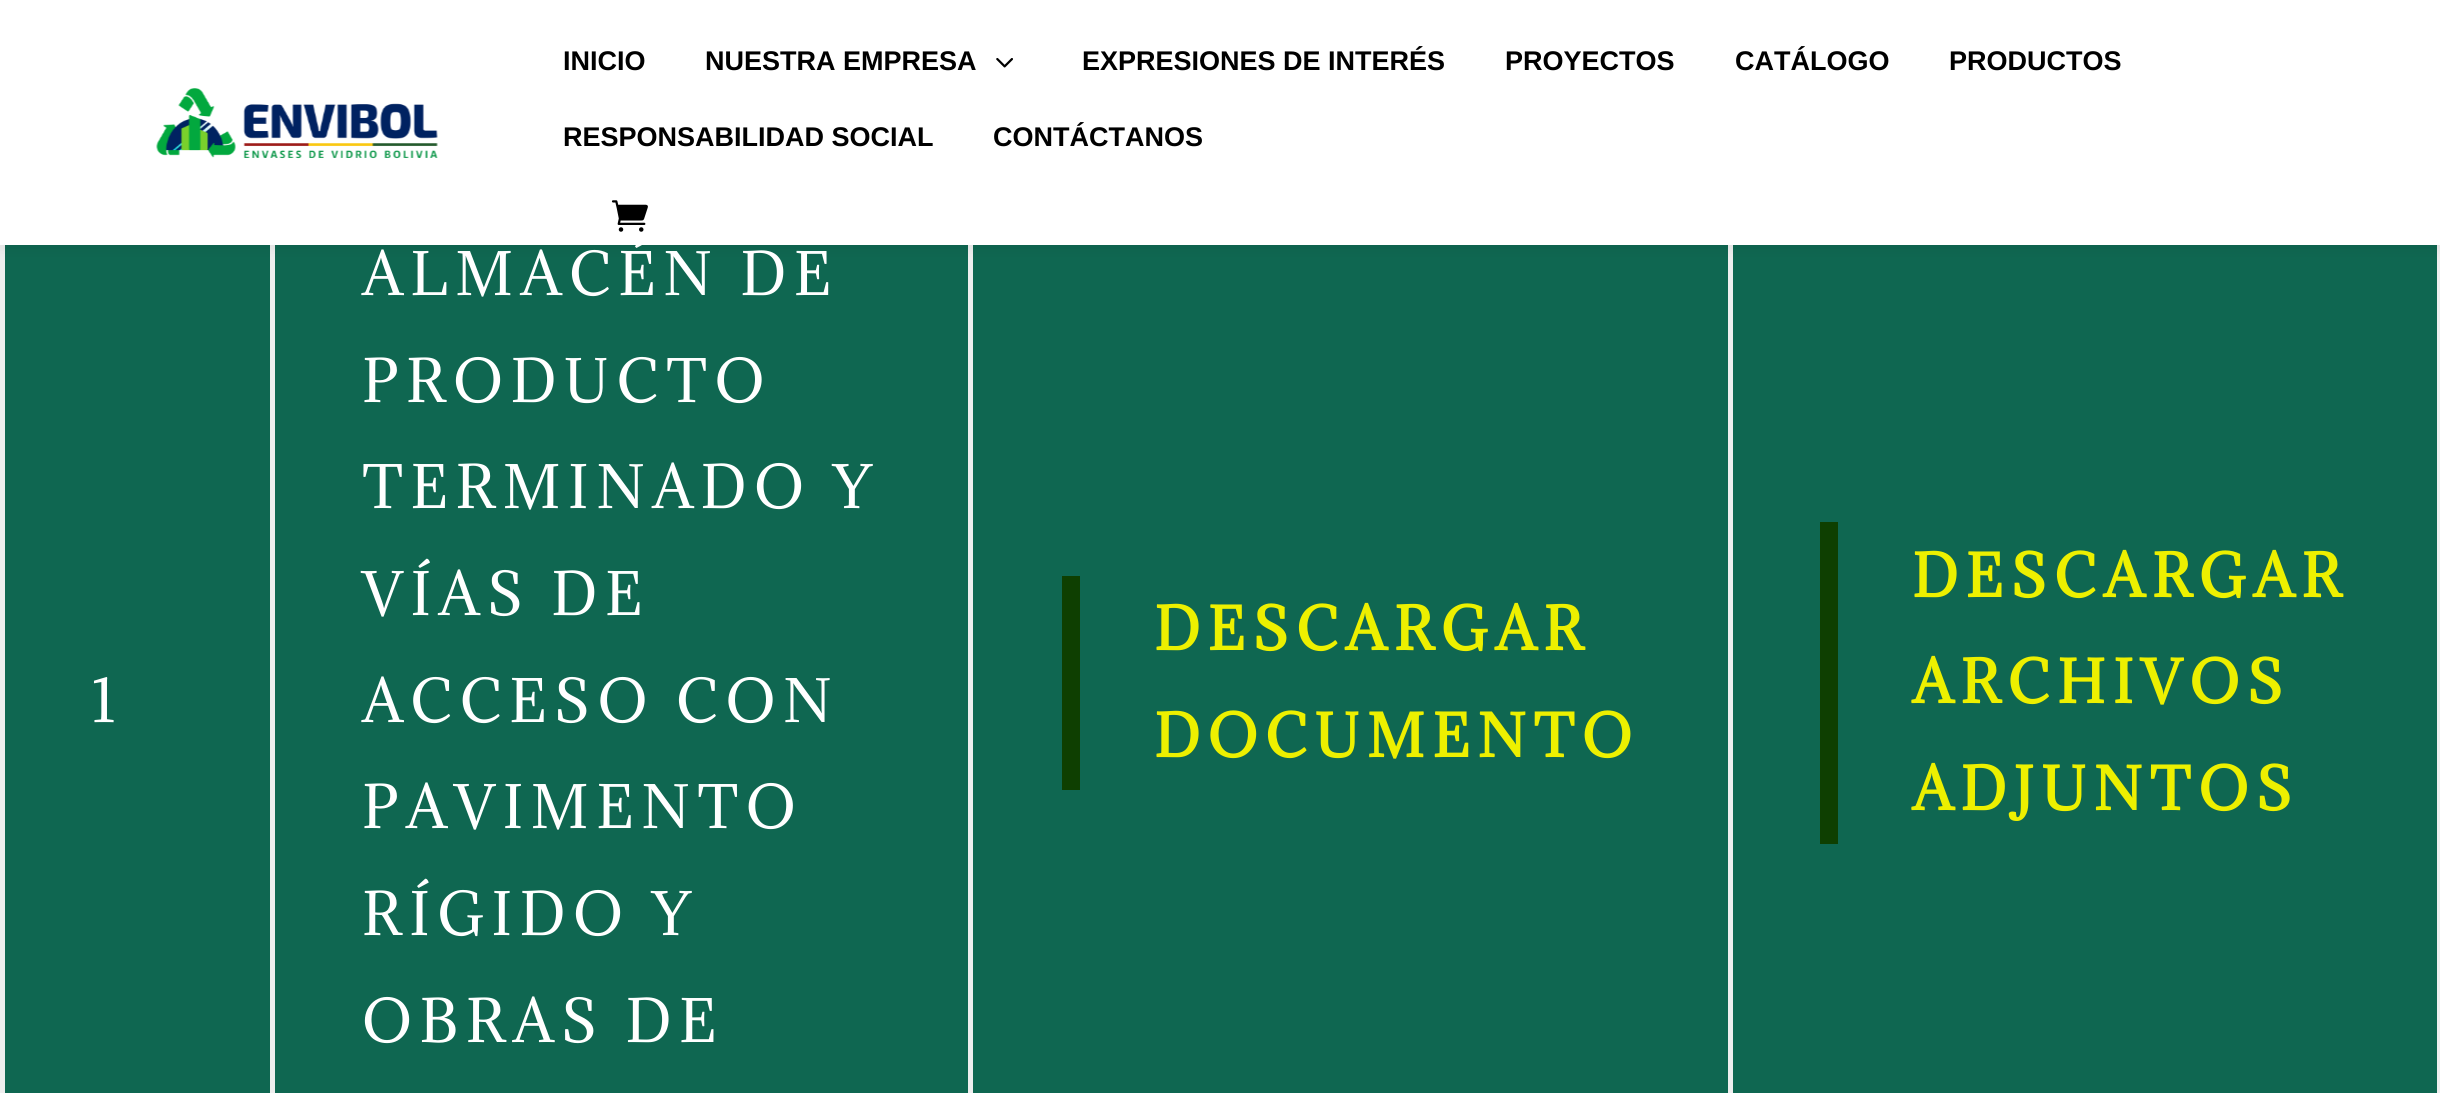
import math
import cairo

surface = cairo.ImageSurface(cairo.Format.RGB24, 2440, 1093)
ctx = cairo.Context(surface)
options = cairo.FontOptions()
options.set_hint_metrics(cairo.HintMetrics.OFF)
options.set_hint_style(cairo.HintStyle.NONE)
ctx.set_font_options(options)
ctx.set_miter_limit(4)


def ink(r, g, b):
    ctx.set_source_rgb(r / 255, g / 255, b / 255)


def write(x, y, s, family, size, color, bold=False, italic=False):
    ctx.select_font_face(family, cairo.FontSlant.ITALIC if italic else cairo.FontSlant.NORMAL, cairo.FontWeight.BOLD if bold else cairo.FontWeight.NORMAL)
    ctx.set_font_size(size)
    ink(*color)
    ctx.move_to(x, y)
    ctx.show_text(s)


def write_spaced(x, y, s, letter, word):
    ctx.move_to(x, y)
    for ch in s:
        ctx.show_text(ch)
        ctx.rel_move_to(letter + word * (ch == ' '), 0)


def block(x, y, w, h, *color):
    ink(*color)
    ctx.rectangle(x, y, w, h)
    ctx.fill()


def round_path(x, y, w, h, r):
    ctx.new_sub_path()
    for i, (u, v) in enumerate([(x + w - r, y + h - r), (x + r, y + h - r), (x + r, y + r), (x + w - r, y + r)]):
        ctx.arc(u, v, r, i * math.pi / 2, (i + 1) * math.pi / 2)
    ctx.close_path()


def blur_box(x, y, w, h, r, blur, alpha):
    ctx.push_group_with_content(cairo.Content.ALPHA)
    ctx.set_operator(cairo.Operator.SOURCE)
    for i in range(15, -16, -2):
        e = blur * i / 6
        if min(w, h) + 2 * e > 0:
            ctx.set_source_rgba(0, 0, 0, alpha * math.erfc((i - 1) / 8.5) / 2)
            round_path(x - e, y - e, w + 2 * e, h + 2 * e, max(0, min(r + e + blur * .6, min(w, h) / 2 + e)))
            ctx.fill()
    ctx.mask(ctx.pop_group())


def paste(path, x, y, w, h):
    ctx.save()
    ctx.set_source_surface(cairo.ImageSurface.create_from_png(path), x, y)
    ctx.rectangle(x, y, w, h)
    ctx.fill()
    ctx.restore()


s1 = dict(family="Liberation Sans", size=27, color=(0, 0, 0), bold=True)

ink(15, 103, 81)
ctx.paint()
block(2437, 245, 3, 848, 238, 238, 238)
block(0, 245, 5, 848, 238, 238, 238)
block(270, 245, 5, 848, 238, 238, 238)
block(968, 245, 5, 848, 238, 238, 238)
block(1728, 245, 5, 848, 238, 238, 238)
ink(0, 0, 0)
blur_box(0, 0, 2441, 245, 0, 8, 0.1)
block(0, 0, 2440, 245, 255, 255, 255)
paste("pic1.png", 156, 88, 282, 71)
write(563, 70, "INICIO", **s1)
write(705, 70, "NUESTRA EMPRESA", **s1)
paste("pic2.png", 996, 58, 17, 10)
write(1082, 70, "EXPRESIONES DE INTERÉS", **s1)
write(1505, 70, "PROYECTOS", **s1)
write(1735, 70, "CATÁLOGO", **s1)
write(1949, 70, "PRODUCTOS", **s1)
write(563, 146, "RESPONSABILIDAD SOCIAL", **s1)
write(993, 146, "CONTÁCTANOS", **s1)
paste("pic3.png", 611, 200, 37, 32)
ctx.select_font_face("Adamina")
ctx.set_font_size(55.25)
ink(255, 255, 255)
write_spaced(92, 722, "1", 7.4, 0)
write_spaced(362, 295, "ALMACÉN DE", 7.4, 0)
write_spaced(362, 402, "PRODUCTO", 7.4, 0)
write_spaced(362, 508, "TERMINADO Y", 7.4, 0)
write_spaced(362, 615, "VÍAS DE", 7.4, 0)
write_spaced(362, 722, "ACCESO CON", 7.4, 0)
write_spaced(362, 828, "PAVIMENTO", 7.4, 0)
write_spaced(362, 935, "RÍGIDO Y", 7.4, 0)
write_spaced(362, 1042, "OBRAS DE", 7.4, 0)
block(1062, 576, 18, 214, 14, 63, 1)
ctx.select_font_face("Adamina", cairo.FontSlant.NORMAL, cairo.FontWeight.BOLD)
ink(237, 240, 0)
write_spaced(1154, 650, "DESCARGAR", 7.4, 0)
write_spaced(1154, 757, "DOCUMENTO", 7.4, 0)
block(1820, 522, 18, 322, 14, 63, 1)
ink(237, 240, 0)
write_spaced(1912, 597, "DESCARGAR", 7.4, 0)
write_spaced(1912, 703, "ARCHIVOS", 7.4, 0)
write_spaced(1912, 810, "ADJUNTOS", 7.4, 0)
surface.write_to_png("screenshot.png")
